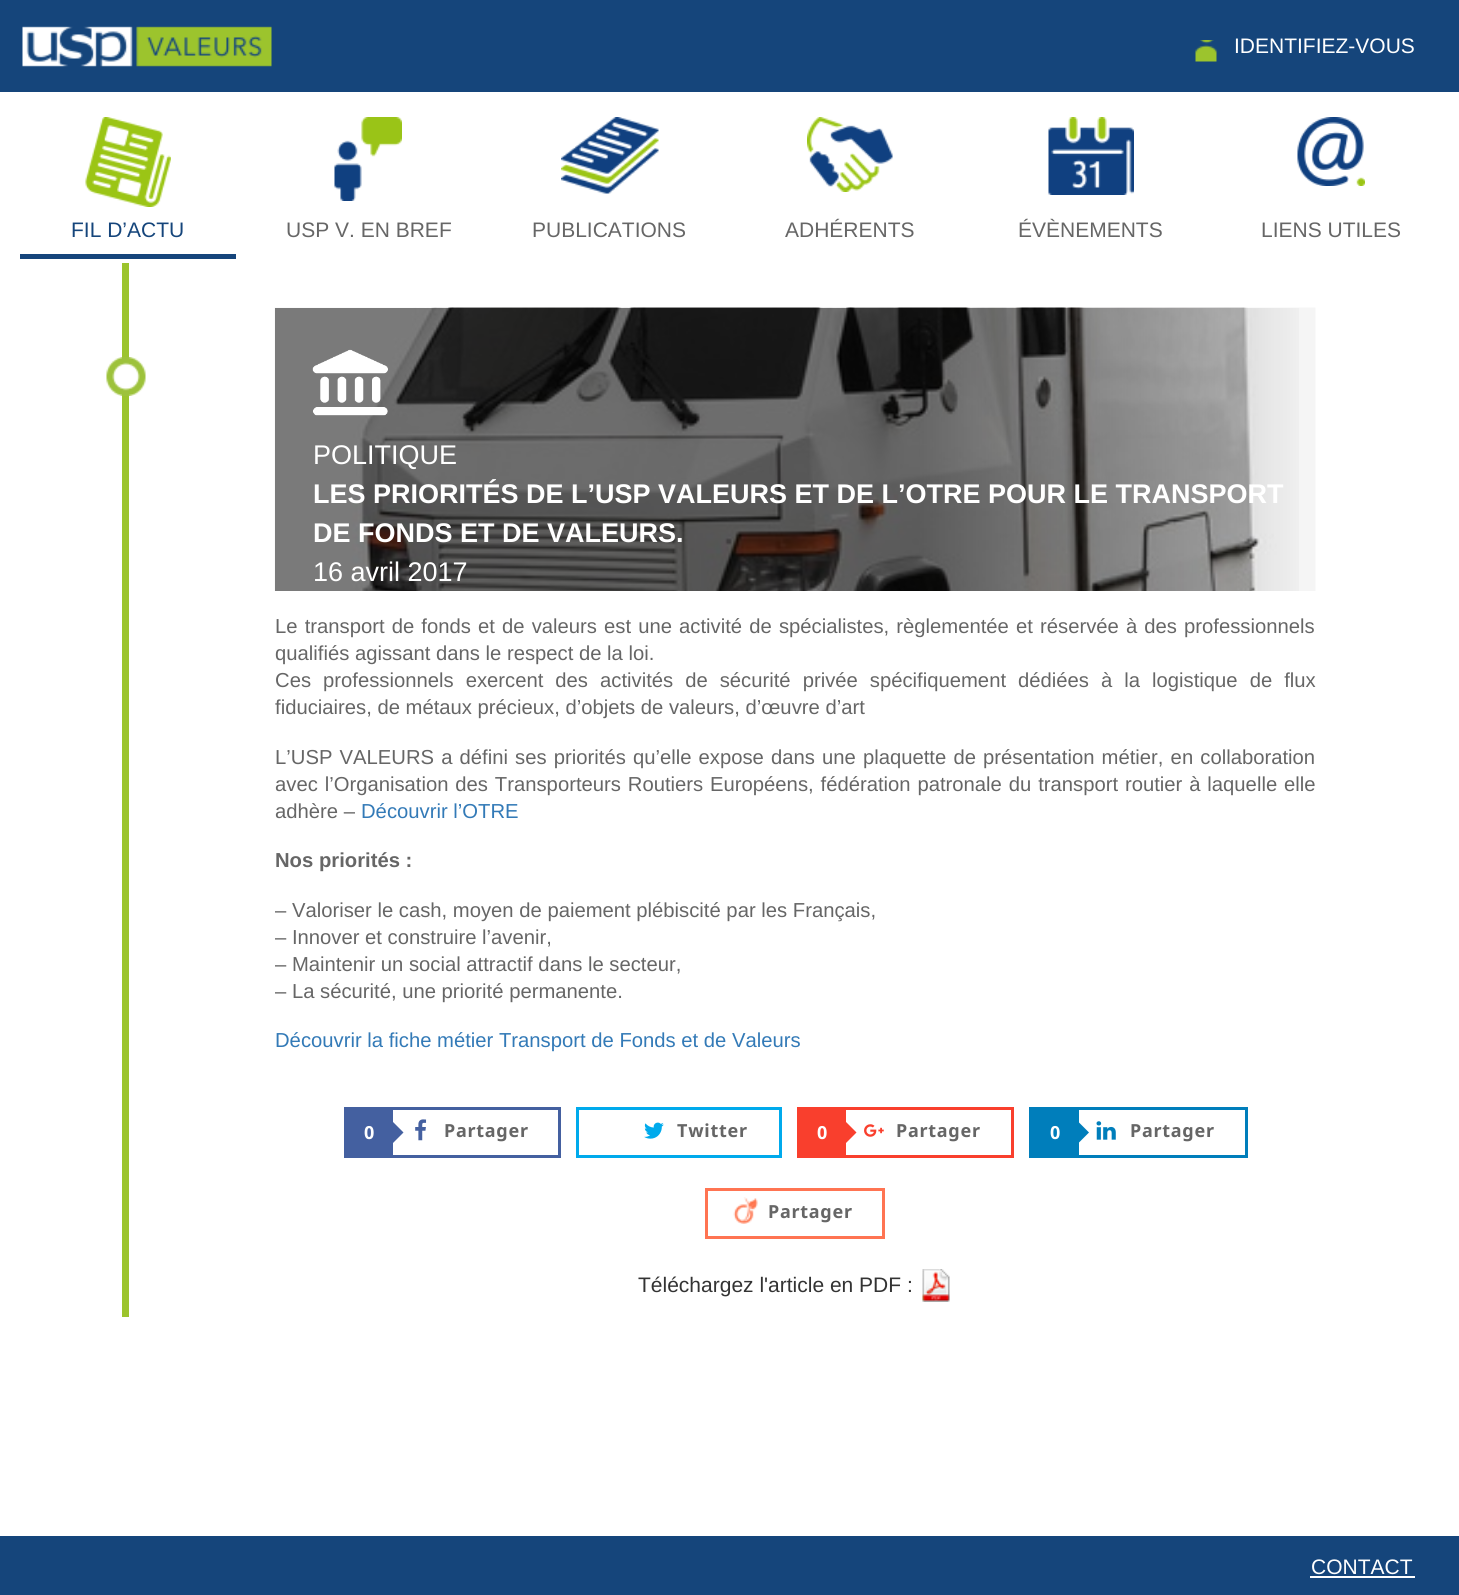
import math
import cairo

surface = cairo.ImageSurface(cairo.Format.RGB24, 1459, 1595)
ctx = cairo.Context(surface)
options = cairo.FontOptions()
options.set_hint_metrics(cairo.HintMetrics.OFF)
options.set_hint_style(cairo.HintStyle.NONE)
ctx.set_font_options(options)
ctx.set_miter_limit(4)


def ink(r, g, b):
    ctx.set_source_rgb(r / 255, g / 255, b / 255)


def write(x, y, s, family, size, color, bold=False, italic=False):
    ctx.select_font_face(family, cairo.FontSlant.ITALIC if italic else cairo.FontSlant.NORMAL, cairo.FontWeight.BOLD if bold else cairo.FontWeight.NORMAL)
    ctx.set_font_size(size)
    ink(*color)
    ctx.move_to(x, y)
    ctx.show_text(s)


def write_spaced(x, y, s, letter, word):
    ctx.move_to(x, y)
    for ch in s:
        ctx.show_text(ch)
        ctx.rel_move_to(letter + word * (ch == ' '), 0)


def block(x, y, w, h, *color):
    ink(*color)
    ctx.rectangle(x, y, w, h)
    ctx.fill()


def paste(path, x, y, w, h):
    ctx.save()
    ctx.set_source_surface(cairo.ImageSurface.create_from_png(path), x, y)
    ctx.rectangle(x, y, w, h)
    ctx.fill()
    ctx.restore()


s1 = dict(family="Liberation Sans", size=21, color=(255, 255, 255))
s2 = dict(family="Liberation Sans", size=21, color=(21, 69, 123))
s3 = dict(family="Liberation Sans", size=21, color=(102, 102, 102))
s4 = dict(family="Liberation Sans", size=27, color=(255, 255, 255))
s5 = dict(family="Liberation Sans", size=27, color=(255, 255, 255), bold=True)
s6 = dict(family="Liberation Sans", size=20.25, color=(102, 102, 102))
s7 = dict(family="Liberation Sans", size=20.25, color=(51, 122, 183))
s8 = dict(family="Liberation Sans", size=20.25, color=(102, 102, 102), bold=True)
s9 = dict(family="Liberation Sans", size=21, color=(51, 51, 51))

ink(255, 255, 255)
ctx.paint()
block(0, 0, 1459, 92, 21, 69, 123)
paste("pic1.png", 22, 26, 250, 41)
paste("pic2.png", 1195, 40, 22, 22)
write(1234, 53, "IDENTIFIEZ-VOUS", **s1)
paste("pic3.png", 85, 117, 86, 90)
block(20, 254, 216, 5, 21, 69, 123)
write(71, 237, "FIL D’ACTU", **s2)
paste("pic4.png", 334, 117, 68, 84)
write(286, 237, "USP V. EN BREF", **s3)
paste("pic5.png", 561, 117, 98, 77)
write(532, 237, "PUBLICATIONS", **s3)
paste("pic6.png", 807, 117, 86, 75)
write(785, 237, "ADHÉRENTS", **s3)
paste("pic7.png", 1048, 117, 86, 78)
write(1018, 237, "ÉVÈNEMENTS", **s3)
paste("pic8.png", 1297, 117, 68, 69)
write(1261, 237, "LIENS UTILES", **s3)
block(122, 263, 7, 1054, 156, 196, 45)
paste("pic9.png", 106, 357, 40, 39)
paste("pic10.png", 274, 307, 1042, 284)
gradient = cairo.LinearGradient(275, 449, 1316, 449)
gradient.add_color_stop_rgba(0.62, 0, 0, 0, 0.5)
gradient.add_color_stop_rgba(1, 0, 0, 0, 0)
ctx.set_source(gradient)
ctx.rectangle(275, 308, 1024, 283)
ctx.fill()
paste("pic11.png", 312, 349, 76, 67)
write(313, 464, "POLITIQUE", **s4)
write(313, 503, "LES PRIORITÉS DE L’USP VALEURS ET DE L’OTRE POUR LE TRANSPORT", **s5)
write(313, 542, "DE FONDS ET DE VALEURS.", **s5)
write(313, 581, "16 avril 2017", **s4)
ctx.set_font_size(20.25)
ink(102, 102, 102)
write_spaced(275, 633, "Le transport de fonds et de valeurs est une activité de spécialistes, règlementée et réservée à des professionnels", 0, 1.5)
write(275, 660, "qualifiés agissant dans le respect de la loi.", **s6)
write_spaced(275, 687, "Ces professionnels exercent des activités de sécurité privée spécifiquement dédiées à la logistique de flux", 0, 6.4)
write(275, 714, "fiduciaires, de métaux précieux, d’objets de valeurs, d’œuvre d’art", **s6)
write_spaced(275, 764, "L’USP VALEURS a défini ses priorités qu’elle expose dans une plaquette de présentation métier, en collaboration", 0, 1.5)
write_spaced(275, 791, "avec l’Organisation des Transporteurs Routiers Européens, fédération patronale du transport routier à laquelle elle", 0, 1.25)
write(275, 818, "adhère –", **s6)
write(361, 818, "Découvrir l’OTRE", **s7)
write(275, 867, "Nos priorités :", **s8)
write(275, 917, "– Valoriser le cash, moyen de paiement plébiscité par les Français,", **s6)
write(275, 944, "– Innover et construire l’avenir,", **s6)
write(275, 971, "– Maintenir un social attractif dans le secteur,", **s6)
write(275, 998, "– La sécurité, une priorité permanente.", **s6)
write(275, 1047, "Découvrir la fiche métier Transport de Fonds et de Valeurs", **s7)
ctx.rectangle(345.5, 1108.5, 214, 48)
ink(68, 96, 160)
ctx.set_line_width(3)
ctx.stroke()
block(347, 1110, 46, 45, 68, 96, 160)
ctx.select_font_face("Noto Sans", cairo.FontSlant.NORMAL, cairo.FontWeight.BOLD)
ctx.set_font_size(18)
ink(255, 255, 255)
write_spaced(364, 1139, "0", 0.75, 0)
ink(68, 96, 160)
ctx.new_path()
ctx.move_to(393, 1143)
ctx.line_to(393, 1122)
ctx.line_to(403.5, 1132.5)
ctx.close_path()
ctx.fill()
paste("pic12.png", 415, 1119, 12, 22)
ink(102, 102, 102)
write_spaced(444, 1137, "Partager", 0.75, 0)
ctx.rectangle(577.5, 1108.5, 203, 48)
ink(0, 170, 236)
ctx.stroke()
paste("pic13.png", 644, 1122, 20, 17)
ink(102, 102, 102)
write_spaced(677, 1137, "Twitter", 0.75, 0)
ctx.rectangle(798.5, 1108.5, 214, 48)
ink(249, 63, 45)
ctx.stroke()
block(800, 1110, 46, 45, 249, 63, 45)
ink(255, 255, 255)
write_spaced(817, 1139, "0", 0.75, 0)
ink(249, 63, 45)
ctx.new_path()
ctx.move_to(846, 1143)
ctx.line_to(846, 1122)
ctx.line_to(856.5, 1132.5)
ctx.close_path()
ctx.fill()
paste("pic14.png", 864, 1124, 20, 13)
ink(102, 102, 102)
write_spaced(896, 1137, "Partager", 0.75, 0)
ctx.rectangle(1030.5, 1108.5, 216, 48)
ink(0, 126, 187)
ctx.stroke()
block(1032, 1110, 47, 45, 0, 126, 187)
ink(255, 255, 255)
write_spaced(1050, 1139, "0", 0.75, 0)
ink(0, 126, 187)
ctx.new_path()
ctx.move_to(1078.5, 1143)
ctx.line_to(1078.5, 1122)
ctx.line_to(1089, 1132.5)
ctx.close_path()
ctx.fill()
paste("pic15.png", 1096, 1121, 20, 19)
ink(102, 102, 102)
write_spaced(1130, 1137, "Partager", 0.75, 0)
ctx.rectangle(706.5, 1189.5, 177, 48)
ink(255, 116, 82)
ctx.stroke()
paste("pic16.png", 733, 1197, 25, 27)
ink(102, 102, 102)
write_spaced(768, 1218, "Partager", 0.75, 0)
write(638, 1292, "Téléchargez l'article en PDF :", **s9)
paste("pic17.png", 922, 1269, 28, 33)
block(0, 1536, 1459, 59, 21, 69, 123)
block(1310, 1576, 105, 2, 255, 255, 255)
write(1311, 1574, "CONTACT", **s1)
surface.write_to_png("screenshot.png")
